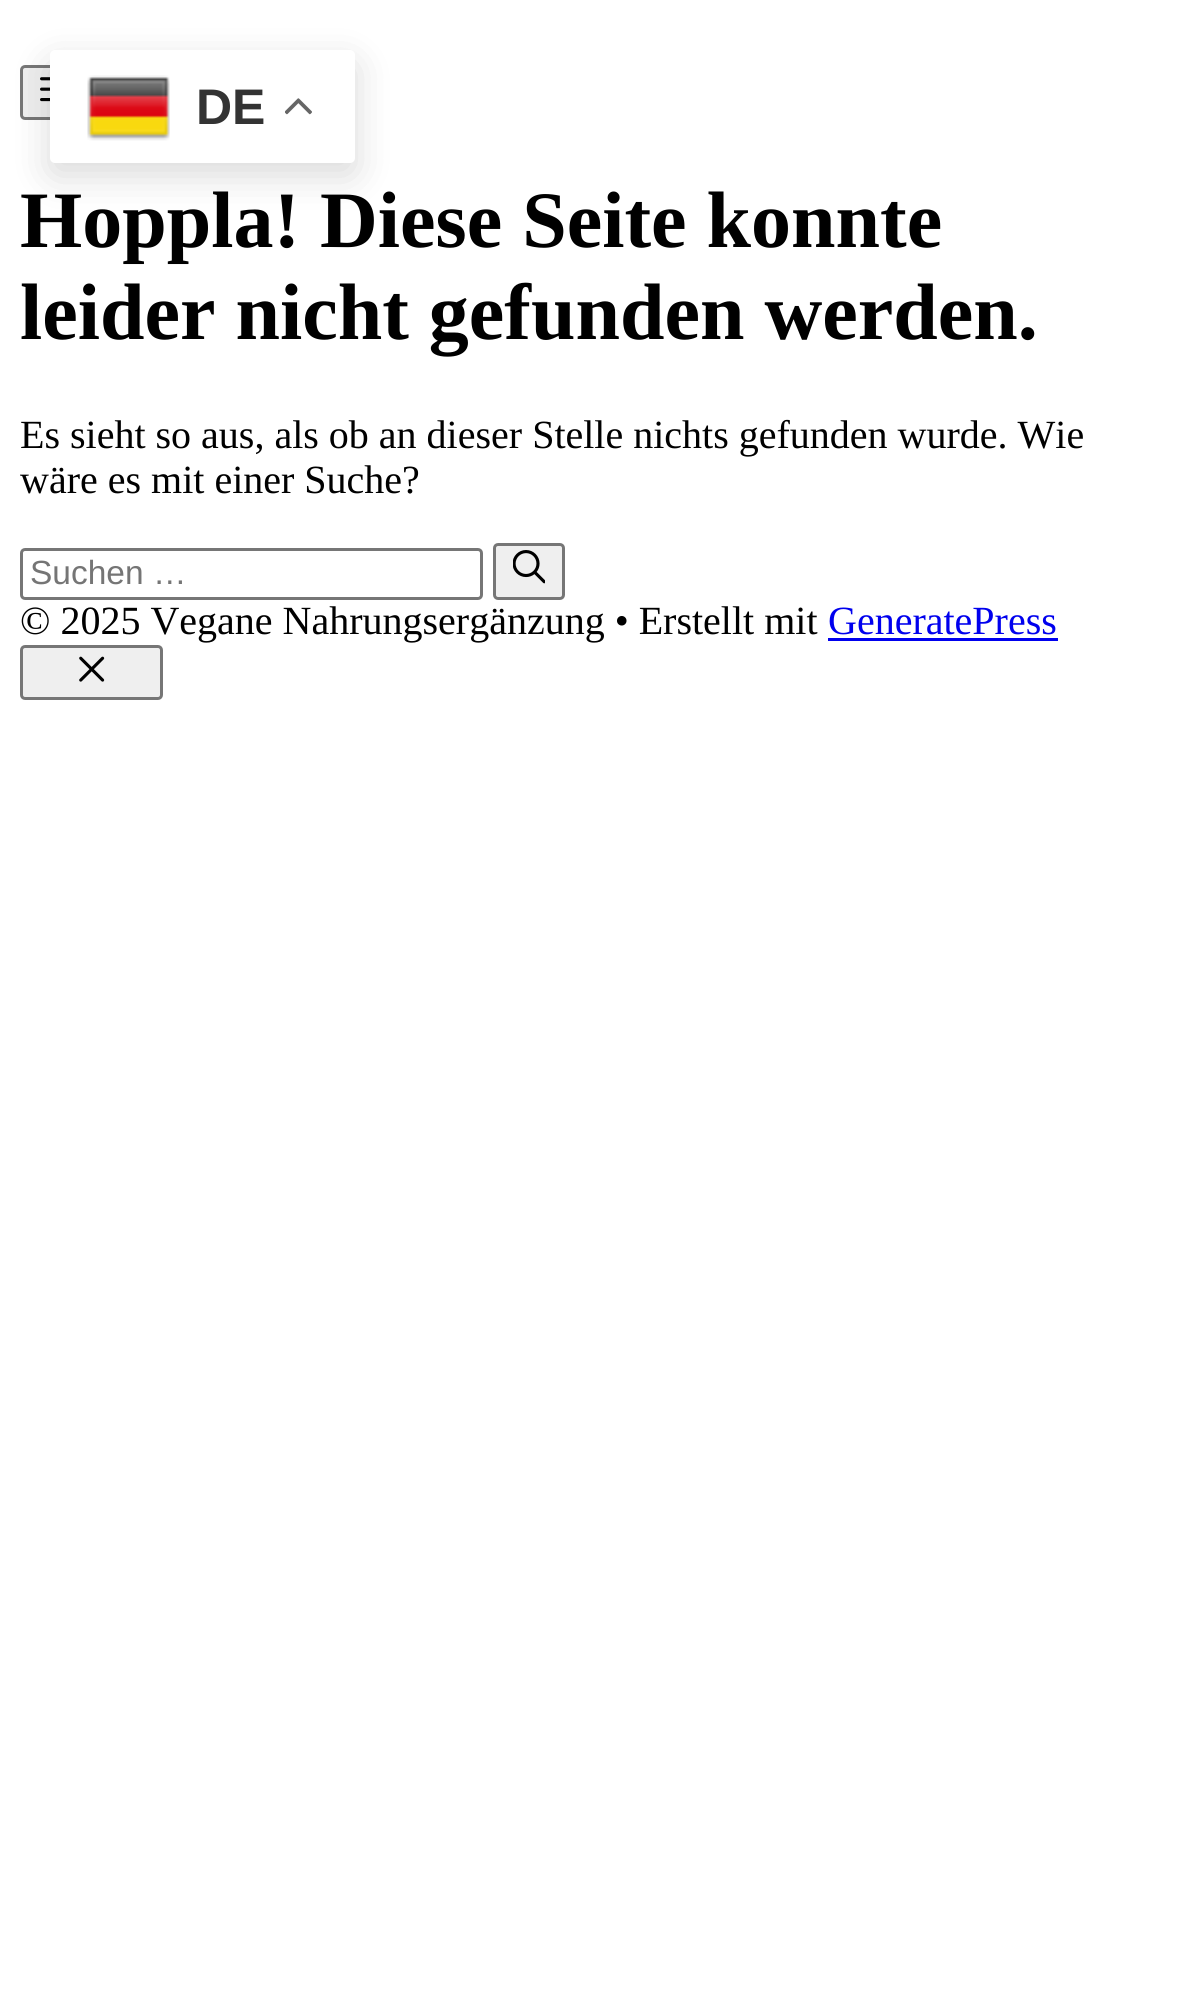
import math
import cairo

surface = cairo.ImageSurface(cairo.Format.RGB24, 1177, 2013)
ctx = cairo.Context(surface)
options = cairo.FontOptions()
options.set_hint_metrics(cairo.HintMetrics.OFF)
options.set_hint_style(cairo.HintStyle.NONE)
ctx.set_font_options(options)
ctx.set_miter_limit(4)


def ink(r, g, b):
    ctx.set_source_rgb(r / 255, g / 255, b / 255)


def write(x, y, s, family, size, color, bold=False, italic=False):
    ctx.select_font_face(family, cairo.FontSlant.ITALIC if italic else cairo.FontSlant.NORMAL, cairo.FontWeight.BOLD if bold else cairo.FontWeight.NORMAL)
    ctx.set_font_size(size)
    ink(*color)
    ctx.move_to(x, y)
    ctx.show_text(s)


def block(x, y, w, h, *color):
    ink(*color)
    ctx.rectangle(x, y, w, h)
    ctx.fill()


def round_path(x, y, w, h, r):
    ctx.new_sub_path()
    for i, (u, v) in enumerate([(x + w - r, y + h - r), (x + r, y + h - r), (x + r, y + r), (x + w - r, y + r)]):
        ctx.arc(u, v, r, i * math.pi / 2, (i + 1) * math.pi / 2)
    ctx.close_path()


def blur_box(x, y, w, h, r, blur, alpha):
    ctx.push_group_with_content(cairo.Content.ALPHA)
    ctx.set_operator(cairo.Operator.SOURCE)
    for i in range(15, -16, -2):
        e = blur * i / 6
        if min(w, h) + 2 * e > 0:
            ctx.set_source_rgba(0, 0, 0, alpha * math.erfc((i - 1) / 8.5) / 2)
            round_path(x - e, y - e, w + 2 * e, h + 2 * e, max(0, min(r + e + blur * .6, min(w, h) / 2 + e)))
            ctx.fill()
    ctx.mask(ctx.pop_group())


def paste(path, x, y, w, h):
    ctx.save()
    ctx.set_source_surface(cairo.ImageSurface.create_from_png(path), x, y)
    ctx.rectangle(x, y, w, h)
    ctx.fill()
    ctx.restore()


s1 = dict(family="Liberation Sans", size=50, color=(51, 51, 51), bold=True)
s2 = dict(family="Liberation Serif", size=80, color=(0, 0, 0), bold=True)
s3 = dict(family="Liberation Serif", size=40, color=(0, 0, 0))
s4 = dict(family="Liberation Sans", size=33.5, color=(117, 117, 117))
s5 = dict(family="Liberation Serif", size=40, color=(0, 0, 238))

ink(255, 255, 255)
ctx.paint()
ink(239, 239, 239)
round_path(21.5, 66.5, 105, 52, 3.5)
ctx.fill_preserve()
ink(118, 118, 118)
ctx.set_line_width(3)
ctx.stroke()
paste("pic1.png", 40, 77, 10, 25)
ink(0, 0, 0)
blur_box(50, 63, 305, 112, 5, 19, 0.15)
ink(255, 255, 255)
round_path(50, 50, 305, 113, 5)
ctx.fill()
paste("pic2.png", 87, 75, 83, 66)
write(196, 124, "DE", **s1)
paste("pic3.png", 285, 98, 27, 17)
write(20, 247, "Hoppla! Diese Seite konnte", **s2)
write(20, 339, "leider nicht gefunden werden.", **s2)
write(20, 448, "Es sieht so aus, als ob an dieser Stelle nichts gefunden wurde. Wie", **s3)
write(20, 493, "wäre es mit einer Suche?", **s3)
round_path(21.5, 549.5, 460, 49, 3.5)
ink(118, 118, 118)
ctx.stroke()
write(30, 584, "Suchen …", **s4)
ink(239, 239, 239)
round_path(494.5, 544.5, 69, 54, 3.5)
ctx.fill_preserve()
ink(118, 118, 118)
ctx.stroke()
paste("pic4.png", 513, 550, 32, 34)
write(20, 634, "© 2025 Vegane Nahrungsergänzung • Erstellt mit", **s3)
write(828, 634, "GeneratePress", **s5)
block(828, 638, 230, 3, 0, 0, 238)
ink(239, 239, 239)
round_path(21.5, 646.5, 140, 52, 3.5)
ctx.fill_preserve()
ink(118, 118, 118)
ctx.stroke()
paste("pic5.png", 79, 656, 26, 26)
surface.write_to_png("screenshot.png")
